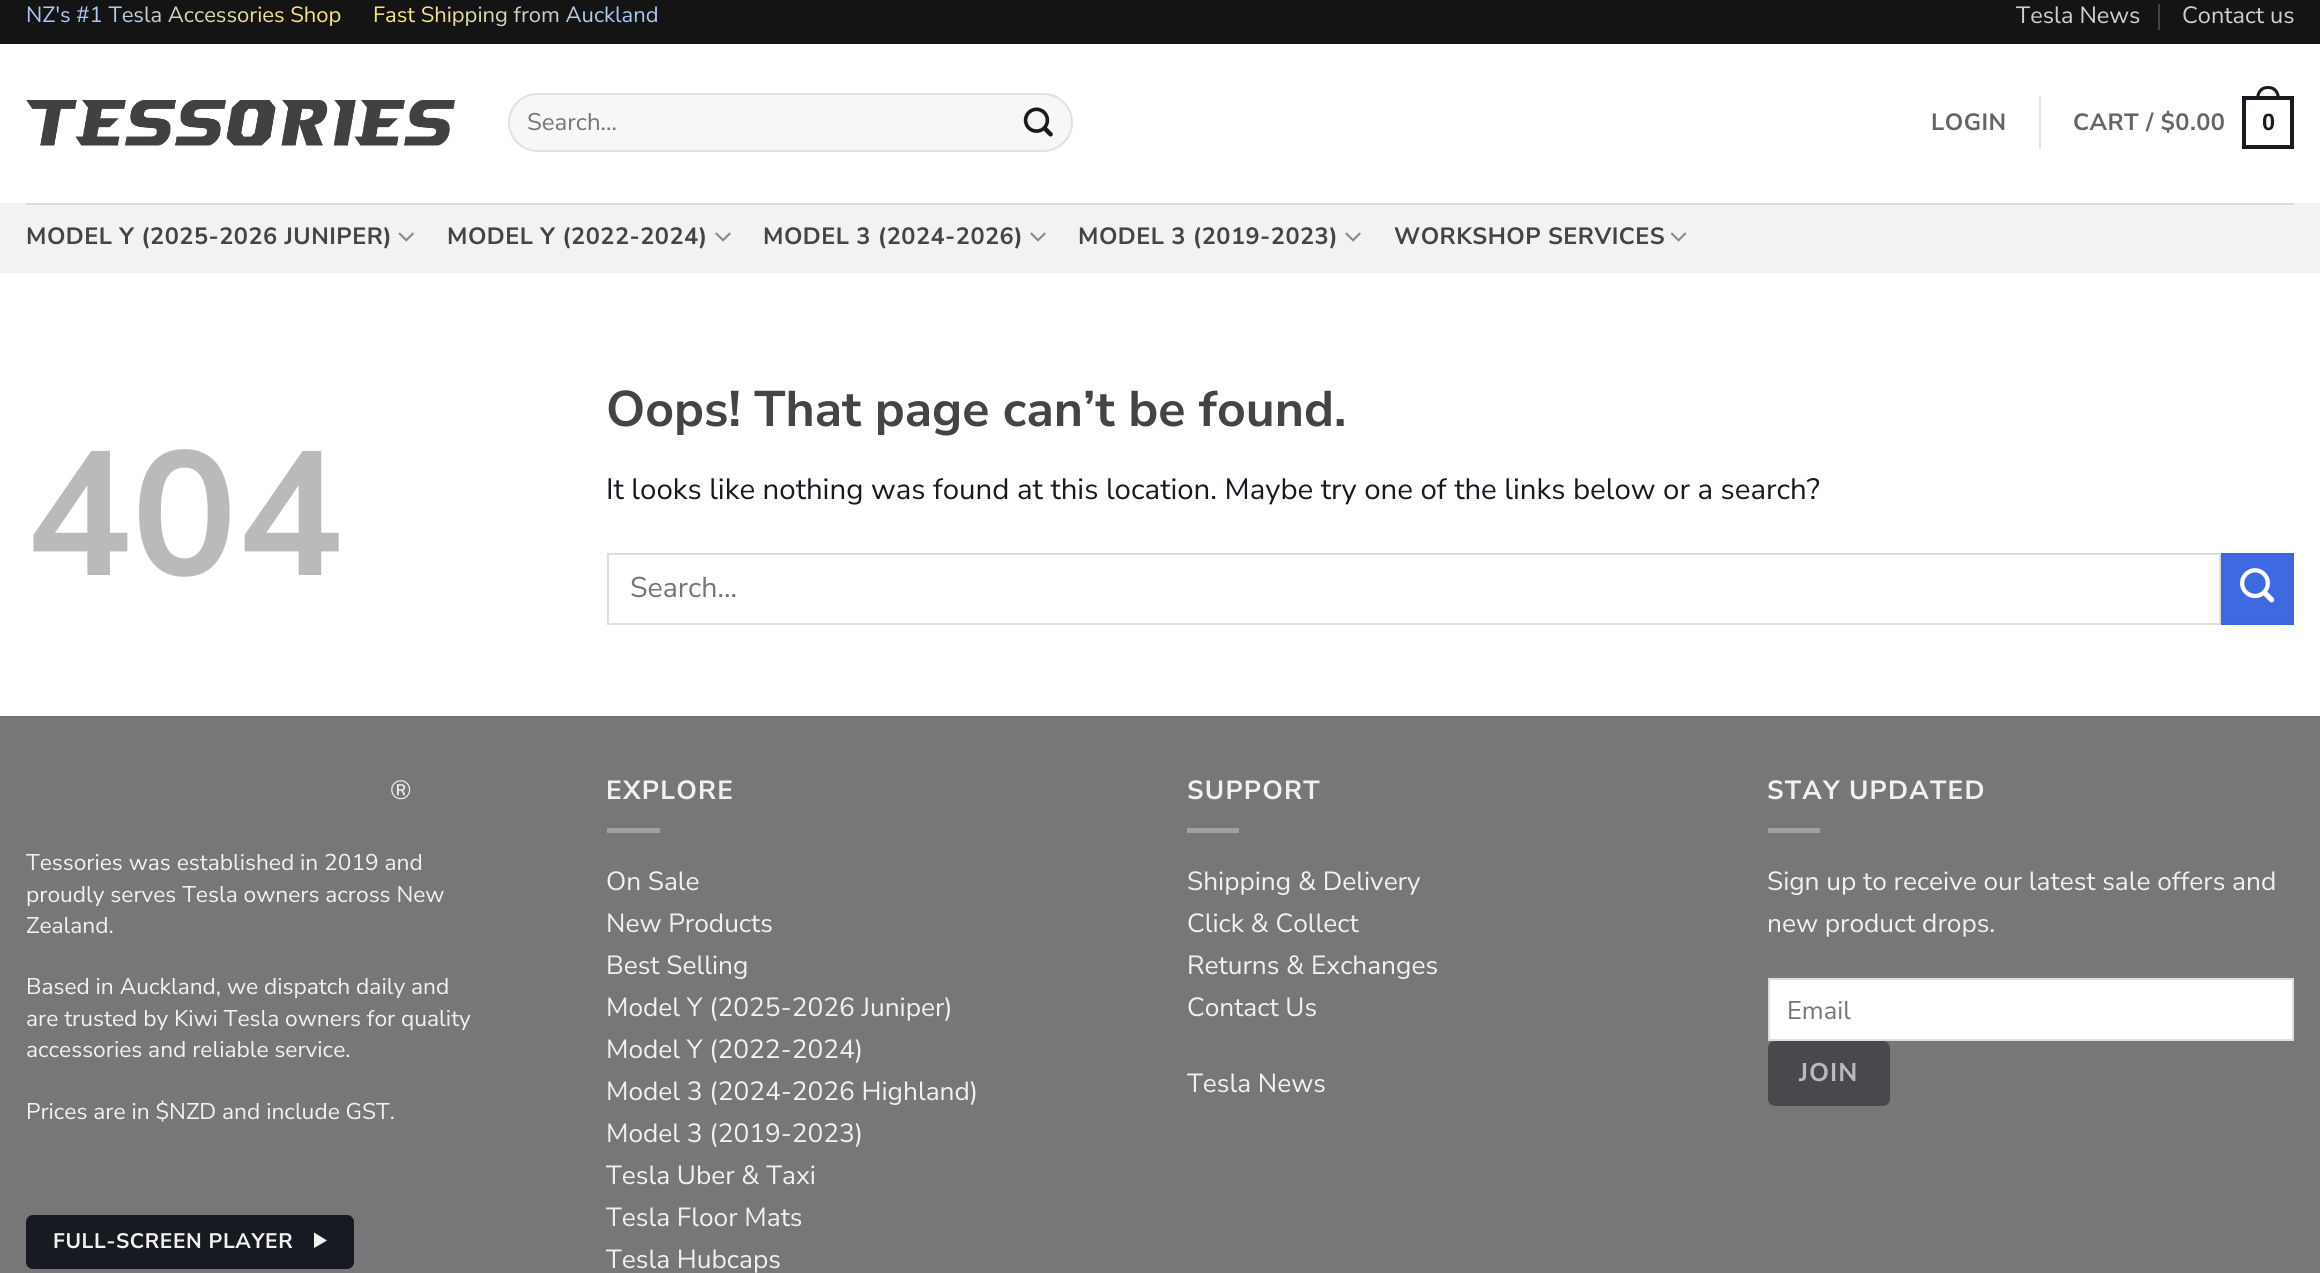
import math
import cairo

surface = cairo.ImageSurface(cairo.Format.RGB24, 2320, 1273)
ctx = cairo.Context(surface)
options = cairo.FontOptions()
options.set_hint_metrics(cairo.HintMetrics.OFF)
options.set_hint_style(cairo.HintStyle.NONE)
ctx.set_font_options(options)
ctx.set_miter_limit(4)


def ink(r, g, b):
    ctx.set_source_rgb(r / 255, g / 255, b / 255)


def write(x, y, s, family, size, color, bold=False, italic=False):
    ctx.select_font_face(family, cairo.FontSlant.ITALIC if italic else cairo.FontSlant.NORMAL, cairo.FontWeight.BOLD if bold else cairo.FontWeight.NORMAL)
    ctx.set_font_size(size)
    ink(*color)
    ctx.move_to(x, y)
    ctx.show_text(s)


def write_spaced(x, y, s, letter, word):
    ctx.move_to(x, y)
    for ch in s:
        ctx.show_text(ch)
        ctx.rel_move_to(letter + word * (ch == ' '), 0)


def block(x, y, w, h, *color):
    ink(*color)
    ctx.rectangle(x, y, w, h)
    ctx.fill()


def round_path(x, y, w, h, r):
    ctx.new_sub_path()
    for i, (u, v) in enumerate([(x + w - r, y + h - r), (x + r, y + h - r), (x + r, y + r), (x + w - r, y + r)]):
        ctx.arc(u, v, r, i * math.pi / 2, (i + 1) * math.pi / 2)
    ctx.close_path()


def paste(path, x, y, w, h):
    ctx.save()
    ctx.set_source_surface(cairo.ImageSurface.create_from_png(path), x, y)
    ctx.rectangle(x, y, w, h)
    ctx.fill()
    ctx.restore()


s1 = dict(family="Nunito Sans", size=23.5, color=(208, 208, 208))
s2 = dict(family="Nunito Sans", size=24, color=(117, 117, 117))
s3 = dict(family="Nunito Sans", size=176, color=(185, 186, 188), bold=True)
s4 = dict(family="Nunito Sans", size=50, color=(68, 68, 68), bold=True)
s5 = dict(family="Nunito Sans", size=29.4, color=(23, 26, 32))
s6 = dict(family="Nunito Sans", size=28.5, color=(117, 117, 117))
s7 = dict(family="Nunito Sans", size=26.25, color=(241, 241, 241))
s8 = dict(family="Nunito Sans", size=22.75, color=(241, 241, 241))
s9 = dict(family="Nunito Sans", size=25.5, color=(117, 117, 117))

ink(255, 255, 255)
ctx.paint()
block(0, 0, 2320, 44, 20, 20, 20)
ctx.select_font_face("Nunito Sans")
ctx.set_font_size(22)
gradient = cairo.LinearGradient(26, 14, 342, 14)
gradient.add_color_stop_rgba(0.17, 0.667, 0.78, 0.953, 1)
gradient.add_color_stop_rgba(0.88, 0.976, 0.898, 0.494, 1)
ctx.set_source(gradient)
ctx.move_to(26, 22)
ctx.show_text("NZ's #1 Tesla Accessories Shop")
gradient = cairo.LinearGradient(659, 14, 373, 14)
gradient.add_color_stop_rgba(0.17, 0.667, 0.78, 0.953, 1)
gradient.add_color_stop_rgba(0.88, 0.976, 0.898, 0.494, 1)
ctx.set_source(gradient)
ctx.move_to(373, 22)
ctx.show_text("Fast Shipping from Auckland")
write(2016, 23, "Tesla News", **s1)
block(2158, 4, 2, 26, 67, 67, 67)
write(2182, 23, "Contact us", **s1)
paste("pic1.png", 26, 100, 429, 46)
ink(247, 247, 247)
round_path(508, 93, 565, 59, 29.5)
ctx.fill()
round_path(509, 94, 563, 57, 28.5)
ctx.set_source_rgba(0, 0, 0, 0.09)
ctx.stroke()
write(527, 130, "Search…", **s2)
paste("pic2.png", 1023, 107, 30, 30)
ctx.select_font_face("Nunito Sans", cairo.FontSlant.NORMAL, cairo.FontWeight.BOLD)
ctx.set_font_size(23.5)
ink(101, 101, 101)
write_spaced(1931, 130, "LOGIN", 0.5, 0)
block(2039, 96, 2, 53, 230, 230, 230)
ink(101, 101, 101)
write_spaced(2073, 130, "CART / $0.00", 0.5, 0)
ctx.rectangle(2244, 98, 48, 49)
ink(23, 26, 32)
ctx.set_line_width(4)
ctx.stroke()
ctx.set_fill_rule(cairo.FillRule.EVEN_ODD)
ctx.new_path()
ctx.move_to(2268, 86)
ctx.curve_to(2276.5, 86, 2280, 92, 2280, 100)
ctx.line_to(2256, 100)
ctx.curve_to(2256, 92, 2259.5, 86, 2268, 86)
ctx.close_path()
ctx.move_to(2268, 89)
ctx.curve_to(2274.5, 89, 2277, 94, 2277, 100)
ctx.line_to(2259, 100)
ctx.curve_to(2259, 94, 2261.5, 89, 2268, 89)
ctx.close_path()
ctx.fill()
ctx.select_font_face("Liberation Sans", cairo.FontSlant.NORMAL, cairo.FontWeight.BOLD)
write_spaced(2262, 130, "0", 0.5, 0)
block(0, 203, 2320, 70, 242, 242, 242)
block(26, 203, 2268, 2, 220, 220, 221)
ctx.select_font_face("Nunito Sans", cairo.FontSlant.NORMAL, cairo.FontWeight.BOLD)
ink(68, 68, 68)
write_spaced(26, 244, "MODEL Y (2025-2026 JUNIPER)", 0.5, 0)
paste("pic3.png", 398, 232, 16, 10)
write_spaced(447, 244, "MODEL Y (2022-2024)", 0.5, 0)
paste("pic4.png", 715, 232, 16, 10)
write_spaced(763, 244, "MODEL 3 (2024-2026)", 0.5, 0)
paste("pic4.png", 1030, 232, 16, 10)
write_spaced(1078, 244, "MODEL 3 (2019-2023)", 0.5, 0)
paste("pic4.png", 1345, 232, 16, 10)
write_spaced(1394, 244, "WORKSHOP SERVICES", 0.5, 0)
paste("pic5.png", 1670, 232, 17, 10)
write(26, 575, "404", **s3)
write(606, 426, "Oops! That page can’t be found.", **s4)
write(606, 499, "It looks like nothing was found at this location. Maybe try one of the links below or a search?", **s5)
ctx.rectangle(608, 554, 1612, 70)
ink(221, 221, 221)
ctx.set_line_width(2)
ctx.stroke()
write(630, 597, "Search…", **s6)
ink(62, 106, 225)
ctx.rectangle(2222, 554, 71, 70)
ctx.fill_preserve()
ink(59, 101, 214)
ctx.stroke()
paste("pic6.png", 2240, 568, 35, 35)
block(0, 718, 2320, 555, 119, 119, 119)
block(0, 716, 2320, 2, 113, 113, 113)
write(390, 799, "®", **s7)
write(26, 870, "Tessories was established in 2019 and", **s8)
write(26, 902, "proudly serves Tesla owners across New", **s8)
write(26, 933, "Zealand.", **s8)
write(26, 994, "Based in Auckland, we dispatch daily and", **s8)
write(26, 1026, "are trusted by Kiwi Tesla owners for quality", **s8)
write(26, 1057, "accessories and reliable service.", **s8)
write(26, 1119, "Prices are in $NZD and include GST.", **s8)
ink(23, 26, 32)
round_path(26, 1215, 328, 54, 7)
ctx.fill()
ctx.select_font_face("Nunito Sans", cairo.FontSlant.NORMAL, cairo.FontWeight.BOLD)
ctx.set_font_size(21)
ink(241, 241, 241)
write_spaced(53, 1248, "FULL-SCREEN PLAYER", 0.6, 0)
ctx.set_fill_rule(cairo.FillRule.WINDING)
ctx.new_path()
ctx.move_to(314, 1232.5)
ctx.line_to(327, 1240.5)
ctx.line_to(314, 1248)
ctx.close_path()
ctx.fill()
ctx.set_font_size(26.25)
write_spaced(606, 799, "EXPLORE", 1.25, 0)
block(607, 828, 53, 5, 160, 160, 160)
write(606, 890, "On Sale", **s7)
write(606, 932, "New Products", **s7)
write(606, 974, "Best Selling", **s7)
write(606, 1016, "Model Y (2025-2026 Juniper)", **s7)
write(606, 1058, "Model Y (2022-2024)", **s7)
write(606, 1100, "Model 3 (2024-2026 Highland)", **s7)
write(606, 1142, "Model 3 (2019-2023)", **s7)
write(606, 1184, "Tesla Uber & Taxi", **s7)
write(606, 1226, "Tesla Floor Mats", **s7)
write(606, 1268, "Tesla Hubcaps", **s7)
ctx.select_font_face("Nunito Sans", cairo.FontSlant.NORMAL, cairo.FontWeight.BOLD)
write_spaced(1187, 799, "SUPPORT", 1.25, 0)
block(1187, 828, 52, 5, 160, 160, 160)
write(1187, 890, "Shipping & Delivery", **s7)
write(1187, 932, "Click & Collect", **s7)
write(1187, 974, "Returns & Exchanges", **s7)
write(1187, 1016, "Contact Us", **s7)
write(1187, 1092, "Tesla News", **s7)
ctx.select_font_face("Nunito Sans", cairo.FontSlant.NORMAL, cairo.FontWeight.BOLD)
write_spaced(1767, 799, "STAY UPDATED", 1.25, 0)
block(1768, 828, 52, 5, 160, 160, 160)
write(1767, 890, "Sign up to receive our latest sale offers and", **s7)
write(1767, 932, "new product drops.", **s7)
ink(255, 255, 255)
ctx.rectangle(1769, 979, 524, 61)
ctx.fill_preserve()
ink(221, 221, 221)
ctx.stroke()
write(1787, 1019, "Email", **s9)
ink(71, 73, 76)
round_path(1768, 1041, 122, 65, 7)
ctx.fill()
ctx.select_font_face("Nunito Sans", cairo.FontSlant.NORMAL, cairo.FontWeight.BOLD)
ink(185, 186, 188)
write_spaced(1799, 1081, "JOIN", 1, 0)
surface.write_to_png("screenshot.png")
